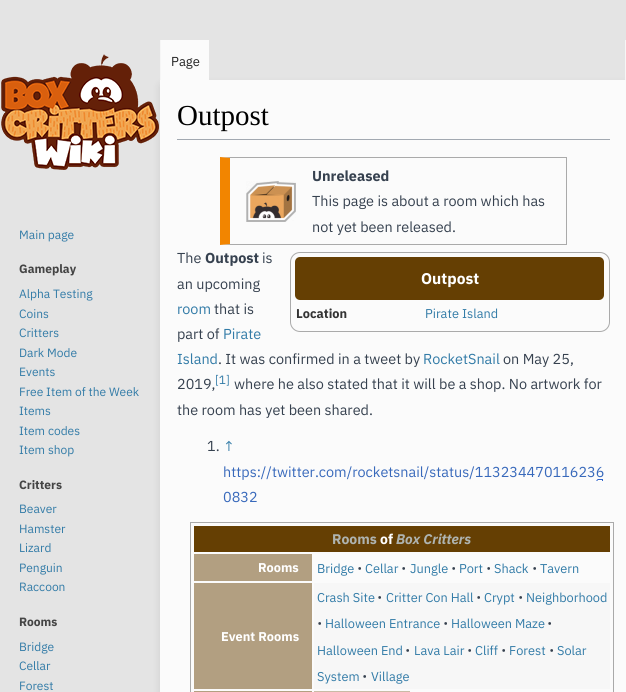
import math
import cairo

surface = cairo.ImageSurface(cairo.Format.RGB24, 626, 692)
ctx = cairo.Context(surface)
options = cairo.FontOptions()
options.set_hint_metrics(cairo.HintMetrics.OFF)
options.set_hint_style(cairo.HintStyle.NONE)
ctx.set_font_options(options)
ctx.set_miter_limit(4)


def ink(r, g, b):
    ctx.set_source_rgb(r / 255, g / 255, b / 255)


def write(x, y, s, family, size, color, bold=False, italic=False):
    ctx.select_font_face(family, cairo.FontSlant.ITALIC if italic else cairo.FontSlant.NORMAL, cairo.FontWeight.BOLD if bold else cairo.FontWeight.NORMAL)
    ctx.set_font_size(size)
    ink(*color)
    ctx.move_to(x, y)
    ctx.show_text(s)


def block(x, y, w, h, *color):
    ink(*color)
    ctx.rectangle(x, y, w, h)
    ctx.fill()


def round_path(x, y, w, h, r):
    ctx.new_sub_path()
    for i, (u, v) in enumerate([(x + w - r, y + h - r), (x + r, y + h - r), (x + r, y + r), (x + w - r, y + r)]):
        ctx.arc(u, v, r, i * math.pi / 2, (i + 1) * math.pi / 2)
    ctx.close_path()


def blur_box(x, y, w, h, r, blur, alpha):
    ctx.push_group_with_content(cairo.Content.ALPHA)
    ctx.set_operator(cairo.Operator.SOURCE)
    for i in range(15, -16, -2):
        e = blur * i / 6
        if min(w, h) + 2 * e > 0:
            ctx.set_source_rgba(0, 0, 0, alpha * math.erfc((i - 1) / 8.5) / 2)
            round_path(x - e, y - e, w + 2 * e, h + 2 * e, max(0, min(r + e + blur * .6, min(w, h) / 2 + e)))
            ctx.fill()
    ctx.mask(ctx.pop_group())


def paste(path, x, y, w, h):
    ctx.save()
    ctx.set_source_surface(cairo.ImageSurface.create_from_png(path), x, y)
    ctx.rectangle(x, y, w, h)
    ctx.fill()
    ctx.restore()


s1 = dict(family="IBM Plex Sans", size=13, color=(34, 34, 34))
s2 = dict(family="IBM Plex Sans", size=12, color=(50, 123, 167))
s3 = dict(family="IBM Plex Sans", size=12, color=(68, 68, 68), bold=True)
s4 = dict(family="Liberation Serif", size=29, color=(0, 0, 0))
s5 = dict(family="IBM Plex Sans", size=14.4, color=(54, 65, 79), bold=True)
s6 = dict(family="IBM Plex Sans", size=14.4, color=(54, 65, 79))
s7 = dict(family="IBM Plex Sans", size=14.4, color=(50, 123, 167))
s8 = dict(family="IBM Plex Sans", size=15.5, color=(255, 255, 255), bold=True)
s9 = dict(family="IBM Plex Sans", size=12.75, color=(51, 51, 51), bold=True)
s10 = dict(family="IBM Plex Sans", size=12.75, color=(50, 123, 167))
s11 = dict(family="IBM Plex Sans", size=14.4, color=(56, 105, 187))
s12 = dict(family="IBM Plex Sans", size=14, color=(174, 179, 176), bold=True)
s13 = dict(family="IBM Plex Sans", size=14, color=(255, 255, 255), bold=True)
s14 = dict(family="IBM Plex Sans", size=14, color=(174, 179, 176), bold=True, italic=True)
s15 = dict(family="IBM Plex Sans", size=12.75, color=(255, 255, 255), bold=True)
s16 = dict(family="IBM Plex Sans", size=15, color=(54, 65, 79), bold=True)

ink(228, 228, 228)
ctx.paint()
ink(0, 0, 0)
blur_box(162, 86, 462, 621, 0, 5, 0.15)
block(160, 40, 1, 40, 246, 246, 246)
block(161, 40, 48, 40, 251, 251, 251)
write(171, 66, "Page", **s1)
block(625, 40, 1, 40, 246, 246, 246)
paste("pic1.png", 1, 54, 158, 116)
write(19, 239, "Main page", **s2)
write(19, 273, "Gameplay", **s3)
write(19, 298, "Alpha Testing", **s2)
write(19, 318, "Coins", **s2)
write(19, 337, "Critters", **s2)
write(19, 357, "Dark Mode", **s2)
write(19, 376, "Events", **s2)
write(19, 396, "Free Item of the Week", **s2)
write(19, 415, "Items", **s2)
write(19, 435, "Item codes", **s2)
write(19, 454, "Item shop", **s2)
write(19, 489, "Critters", **s3)
write(19, 513, "Beaver", **s2)
write(19, 533, "Hamster", **s2)
write(19, 552, "Lizard", **s2)
write(19, 572, "Penguin", **s2)
write(19, 591, "Raccoon", **s2)
write(19, 626, "Rooms", **s3)
write(19, 651, "Bridge", **s2)
write(19, 670, "Cellar", **s2)
write(19, 690, "Forest", **s2)
block(160, 80, 466, 612, 251, 251, 251)
block(177, 139, 433, 1, 162, 169, 177)
write(177, 125, "Outpost", **s4)
ink(170, 170, 170)
ctx.new_path()
ctx.move_to(220, 157)
ctx.line_to(567, 157)
ctx.line_to(566, 158)
ctx.line_to(230, 158)
ctx.close_path()
ctx.fill()
block(566, 157, 1, 88, 170, 170, 170)
ctx.new_path()
ctx.move_to(567, 245)
ctx.line_to(220, 245)
ctx.line_to(230, 244)
ctx.line_to(566, 244)
ctx.close_path()
ctx.fill()
ink(242, 133, 0)
ctx.new_path()
ctx.move_to(220, 245)
ctx.line_to(220, 157)
ctx.line_to(230, 158)
ctx.line_to(230, 244)
ctx.close_path()
ctx.fill()
paste("pic2.png", 246, 181, 50, 41)
write(312, 181, "Unreleased", **s5)
write(312, 206, "This page is about a room which has", **s6)
write(312, 232, "not yet been released.", **s6)
write(177, 263, "The", **s6)
write(205, 263, "Outpost", **s5)
write(262, 263, "is", **s6)
write(177, 289, "an upcoming", **s6)
write(177, 314, "room", **s7)
write(214, 314, "that is", **s6)
write(177, 339, "part of", **s6)
write(223, 339, "Pirate", **s7)
write(177, 364, "Island", **s7)
write(218, 364, ". It was confirmed in a tweet by", **s6)
write(423, 364, "RocketSnail", **s7)
write(503, 364, "on May 25,", **s6)
write(177, 389, "2019,", **s6)
write(215, 384, "[1]", **s2)
write(234, 389, "where he also stated that it will be a shop. No artwork for", **s6)
write(177, 415, "the room has yet been shared.", **s6)
round_path(290.5, 252.5, 319, 79, 9.5)
ink(170, 170, 170)
ctx.set_line_width(1)
ctx.stroke()
ink(101, 63, 3)
round_path(295, 257, 309, 43, 5)
ctx.fill()
write(421, 284, "Outpost", **s8)
write(296, 318, "Location", **s9)
write(425, 318, "Pirate Island", **s10)
write(207, 451, "1.", **s6)
write(223, 451, "↑", **s7)
paste("pic3.png", 596, 479, 7, 2)
write(223, 477, "https://twitter.com/rocketsnail/status/113234470116236", **s11)
write(223, 502, "0832", **s11)
ctx.rectangle(190.5, 522.5, 423, 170)
ink(170, 170, 170)
ctx.stroke()
block(194, 526, 416, 26, 101, 63, 3)
write(332, 544, "Rooms", **s12)
write(380, 544, "of", **s13)
write(396, 544, "Box Critters", **s14)
block(194, 554, 118, 27, 178, 159, 129)
write(258, 572, "Rooms", **s15)
write(317, 573, "Bridge", **s10)
write(357, 573, "·", **s16)
write(365, 573, "Cellar", **s10)
write(401, 573, "·", **s16)
write(410, 573, "Jungle", **s10)
write(451, 573, "·", **s16)
write(459, 573, "Port", **s10)
write(486, 573, "·", **s16)
write(494, 573, "Shack", **s10)
write(532, 573, "·", **s16)
write(540, 573, "Tavern", **s10)
block(194, 583, 118, 106, 178, 159, 129)
write(221, 641, "Event Rooms", **s15)
block(314, 583, 296, 106, 247, 247, 247)
write(317, 602, "Crash Site", **s10)
write(377, 602, "·", **s16)
write(386, 602, "Critter Con Hall", **s10)
write(476, 602, "·", **s16)
write(484, 602, "Crypt", **s10)
write(518, 602, "·", **s16)
write(526, 602, "Neighborhood", **s10)
write(317, 628, "·", **s16)
write(325, 628, "Halloween Entrance", **s10)
write(443, 628, "·", **s16)
write(451, 628, "Halloween Maze", **s10)
write(547, 628, "·", **s16)
write(317, 655, "Halloween End", **s10)
write(405, 655, "·", **s16)
write(414, 655, "Lava Lair", **s10)
write(467, 655, "·", **s16)
write(475, 655, "Cliff", **s10)
write(501, 655, "·", **s16)
write(509, 655, "Forest", **s10)
write(549, 655, "·", **s16)
write(557, 655, "Solar", **s10)
write(317, 681, "System", **s10)
write(362, 681, "·", **s16)
write(371, 681, "Village", **s10)
block(194, 691, 118, 1, 178, 159, 129)
block(314, 691, 96, 1, 201, 187, 166)
surface.write_to_png("screenshot.png")
